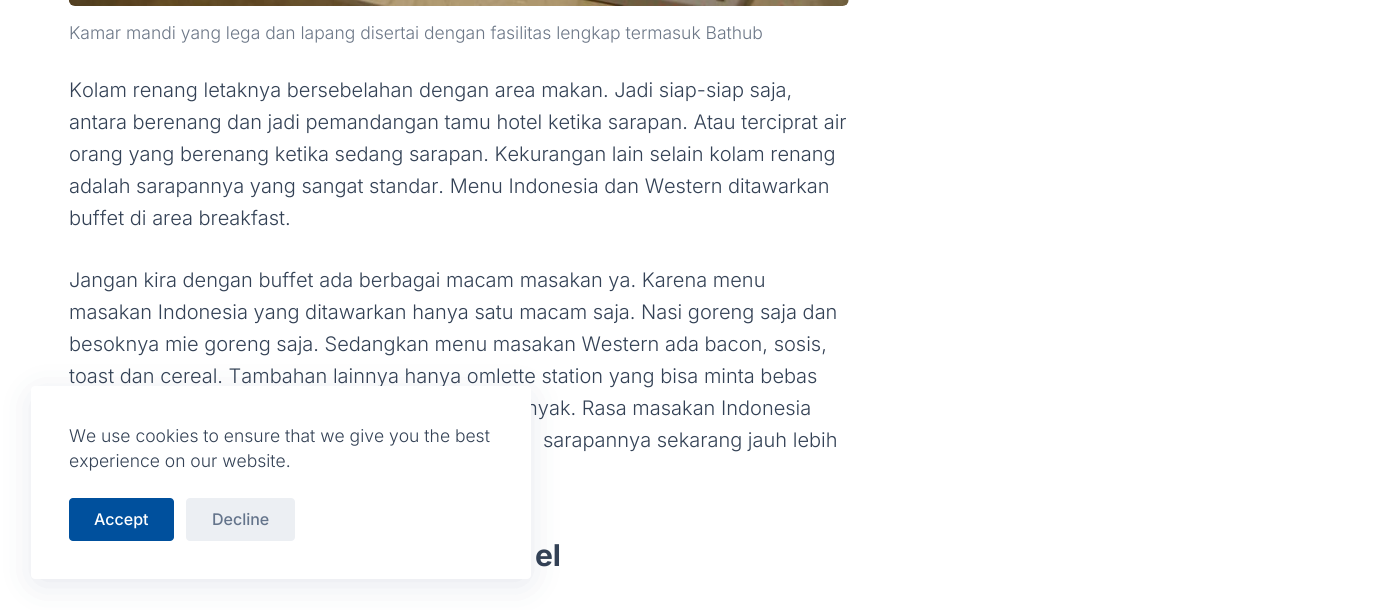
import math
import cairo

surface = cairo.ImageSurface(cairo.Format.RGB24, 1374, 610)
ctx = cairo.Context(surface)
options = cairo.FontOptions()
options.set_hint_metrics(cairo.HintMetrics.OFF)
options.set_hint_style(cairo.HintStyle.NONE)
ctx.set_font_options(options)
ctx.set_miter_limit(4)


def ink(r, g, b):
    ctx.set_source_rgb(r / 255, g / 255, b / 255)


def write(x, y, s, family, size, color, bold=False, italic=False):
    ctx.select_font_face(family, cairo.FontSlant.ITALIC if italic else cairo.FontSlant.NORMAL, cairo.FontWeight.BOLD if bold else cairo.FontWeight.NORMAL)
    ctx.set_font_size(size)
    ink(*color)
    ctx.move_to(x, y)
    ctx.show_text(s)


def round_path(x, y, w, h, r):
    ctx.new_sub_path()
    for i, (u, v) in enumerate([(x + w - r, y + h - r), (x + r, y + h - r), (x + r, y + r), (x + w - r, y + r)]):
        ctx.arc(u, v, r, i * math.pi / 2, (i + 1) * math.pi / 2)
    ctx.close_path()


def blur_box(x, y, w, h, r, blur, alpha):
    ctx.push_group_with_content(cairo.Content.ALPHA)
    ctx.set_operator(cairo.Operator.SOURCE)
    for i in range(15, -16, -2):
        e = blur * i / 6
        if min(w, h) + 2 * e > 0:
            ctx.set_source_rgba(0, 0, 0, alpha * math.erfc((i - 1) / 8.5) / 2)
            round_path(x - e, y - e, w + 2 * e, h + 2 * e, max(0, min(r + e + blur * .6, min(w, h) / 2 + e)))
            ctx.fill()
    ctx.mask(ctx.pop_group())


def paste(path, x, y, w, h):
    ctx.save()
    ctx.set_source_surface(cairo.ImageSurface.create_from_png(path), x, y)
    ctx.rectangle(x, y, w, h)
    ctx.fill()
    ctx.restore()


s1 = dict(family="Inter Light", size=17.5, color=(108, 119, 135))
s2 = dict(family="Inter Light", size=20, color=(51, 65, 85))
s3 = dict(family="Inter", size=30, color=(51, 65, 85), bold=True)
s4 = dict(family="Inter Light", size=17.5, color=(51, 65, 85))
s5 = dict(family="Inter Medium", size=16, color=(255, 255, 255))
s6 = dict(family="Inter Medium", size=16, color=(100, 116, 139))

ink(255, 255, 255)
ctx.paint()
paste("pic1.png", 68, 0, 781, 6)
write(69, 39, "Kamar mandi yang lega dan lapang disertai dengan fasilitas lengkap termasuk Bathub", **s1)
write(69, 97, "Kolam renang letaknya bersebelahan dengan area makan. Jadi siap-siap saja,", **s2)
write(69, 129, "antara berenang dan jadi pemandangan tamu hotel ketika sarapan. Atau terciprat air", **s2)
write(69, 161, "orang yang berenang ketika sedang sarapan. Kekurangan lain selain kolam renang", **s2)
write(69, 193, "adalah sarapannya yang sangat standar. Menu Indonesia dan Western ditawarkan", **s2)
write(69, 225, "buffet di area breakfast.", **s2)
write(69, 287, "Jangan kira dengan buffet ada berbagai macam masakan ya. Karena menu", **s2)
write(69, 319, "masakan Indonesia yang ditawarkan hanya satu macam saja. Nasi goreng saja dan", **s2)
write(69, 351, "besoknya mie goreng saja. Sedangkan menu masakan Western ada bacon, sosis,", **s2)
write(69, 383, "toast dan cereal. Tambahan lainnya hanya omlette station yang bisa minta bebas", **s2)
write(526, 415, "nyak. Rasa masakan Indonesia", **s2)
write(543, 447, "sarapannya sekarang jauh lebih", **s2)
write(535, 566, "el", **s3)
ink(34, 56, 101)
blur_box(38, 399, 487, 180, 0, 19, 0.15)
ink(255, 255, 255)
round_path(31, 386, 500, 193, 4)
ctx.fill()
write(69, 442, "We use cookies to ensure that we give you the best", **s4)
write(69, 467, "experience on our website.", **s4)
ink(0, 80, 157)
round_path(69, 498, 105, 43, 4)
ctx.fill()
write(94, 525, "Accept", **s5)
ink(236, 239, 243)
round_path(186, 498, 109, 43, 4)
ctx.fill()
write(212, 525, "Decline", **s6)
surface.write_to_png("screenshot.png")
